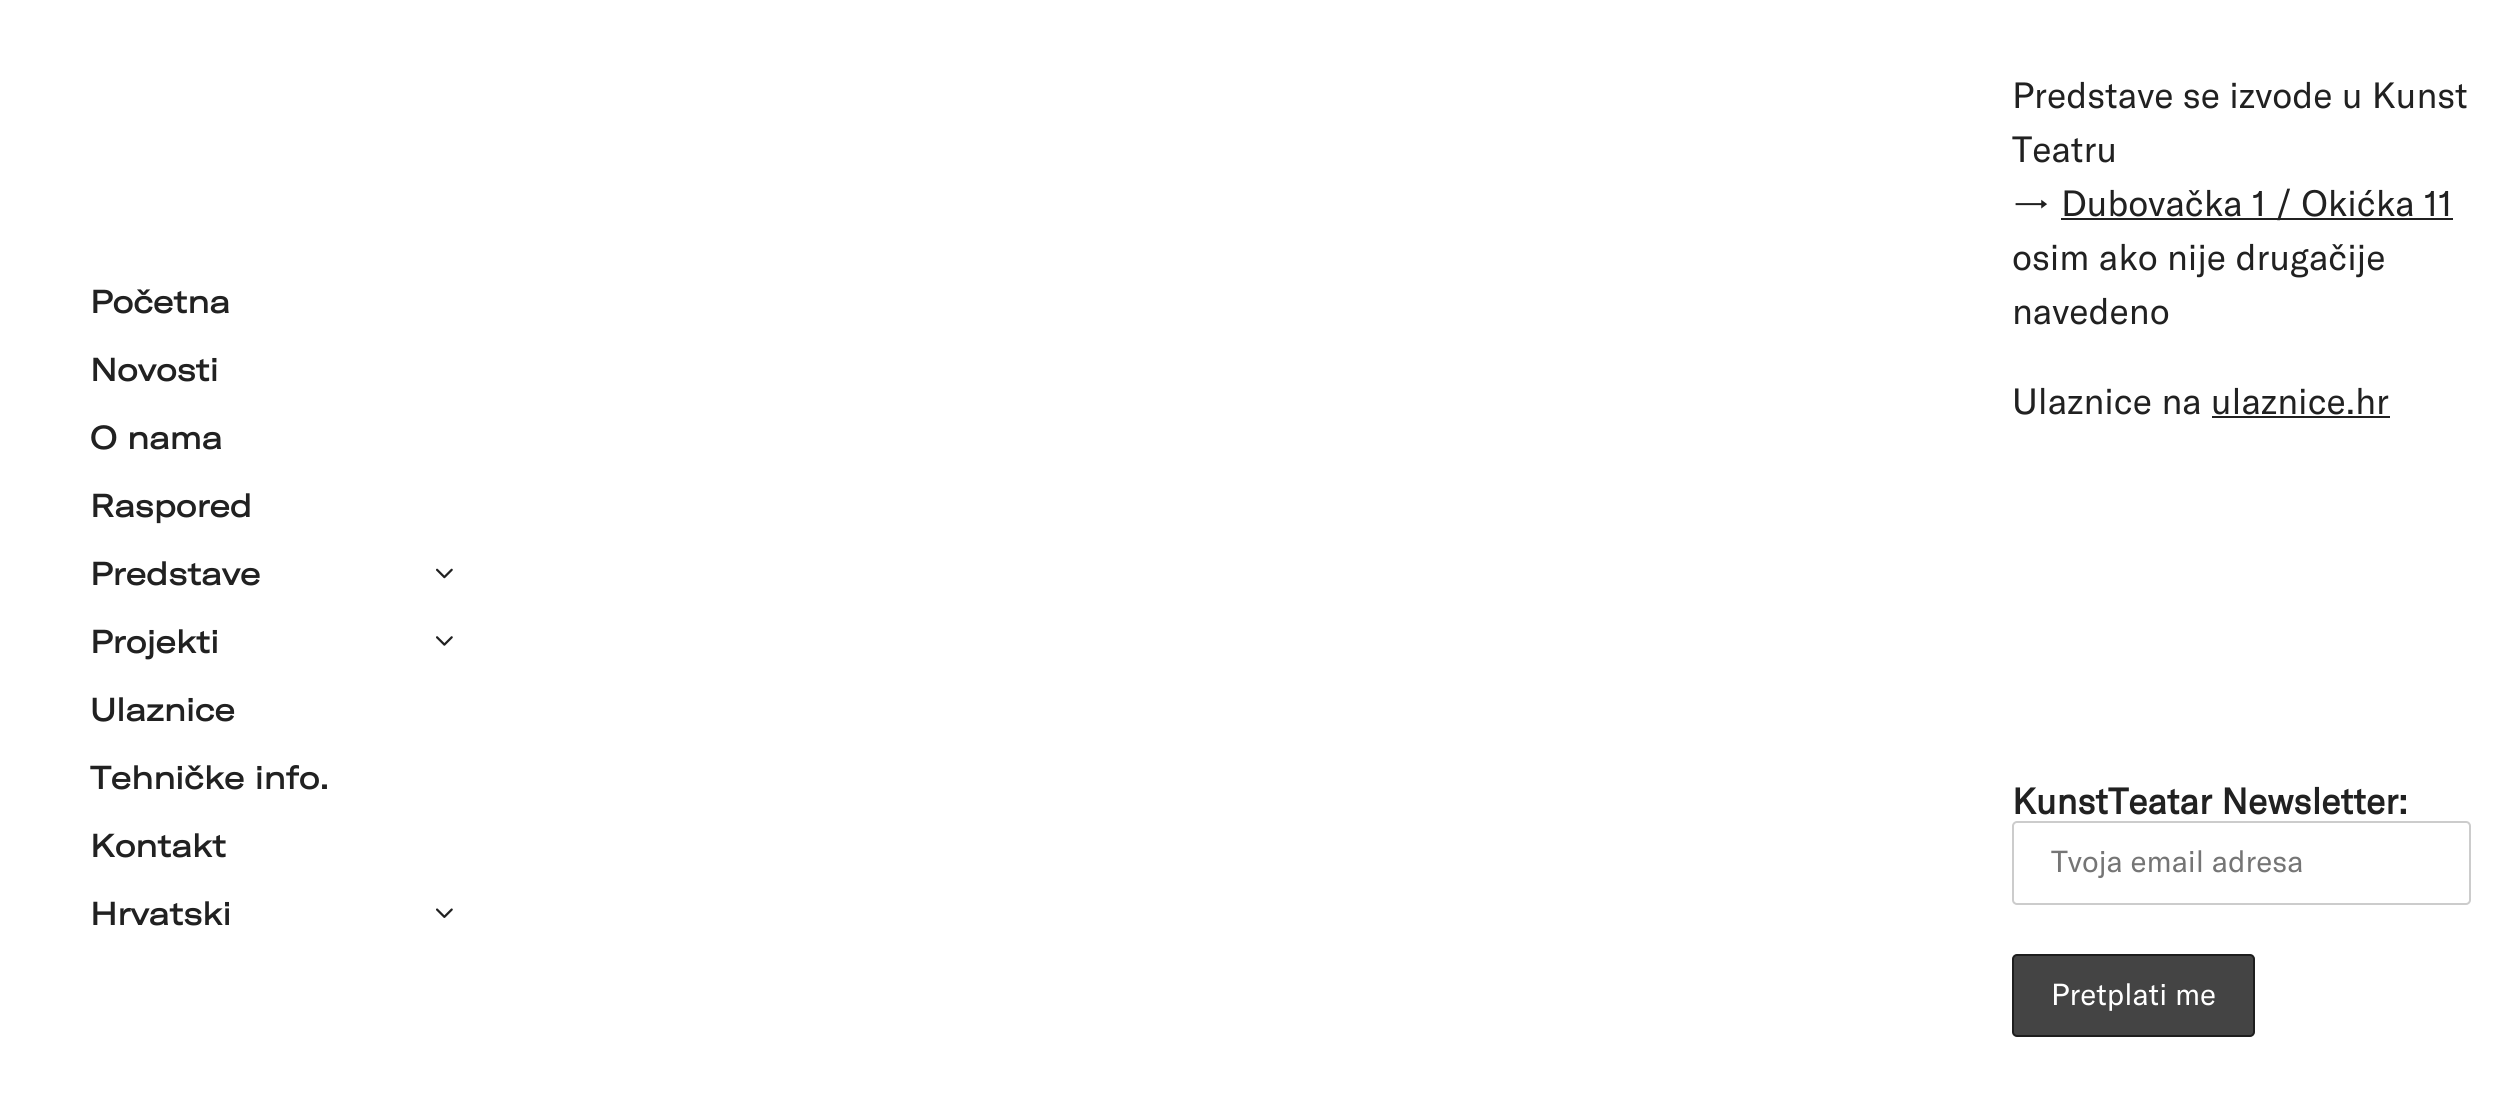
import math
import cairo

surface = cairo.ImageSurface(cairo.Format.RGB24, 2515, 1119)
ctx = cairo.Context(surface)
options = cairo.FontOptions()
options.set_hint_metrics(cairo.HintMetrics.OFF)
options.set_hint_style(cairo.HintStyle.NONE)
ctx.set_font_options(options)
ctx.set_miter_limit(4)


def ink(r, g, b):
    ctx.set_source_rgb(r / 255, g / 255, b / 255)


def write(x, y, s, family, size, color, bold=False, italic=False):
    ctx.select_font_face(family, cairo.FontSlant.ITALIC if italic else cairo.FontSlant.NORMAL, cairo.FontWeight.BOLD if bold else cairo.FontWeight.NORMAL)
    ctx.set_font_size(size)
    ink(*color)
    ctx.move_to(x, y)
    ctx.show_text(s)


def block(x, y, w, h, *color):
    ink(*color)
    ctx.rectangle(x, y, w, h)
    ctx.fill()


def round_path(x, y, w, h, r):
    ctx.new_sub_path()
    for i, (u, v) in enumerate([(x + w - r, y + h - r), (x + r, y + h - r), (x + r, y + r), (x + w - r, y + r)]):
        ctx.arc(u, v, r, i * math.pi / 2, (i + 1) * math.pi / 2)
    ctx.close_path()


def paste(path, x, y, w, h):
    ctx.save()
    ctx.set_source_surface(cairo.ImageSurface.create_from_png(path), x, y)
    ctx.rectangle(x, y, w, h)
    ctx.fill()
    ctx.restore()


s1 = dict(family="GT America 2", size=31.5, color=(33, 33, 33), bold=True)
s2 = dict(family="GT America", size=36, color=(33, 33, 33))
s3 = dict(family="GT America", size=36, color=(33, 33, 33), bold=True)
s4 = dict(family="GT America", size=30, color=(117, 117, 117))
s5 = dict(family="GT America", size=30, color=(255, 255, 255))

ink(255, 255, 255)
ctx.paint()
write(90, 313, "Početna", **s1)
write(90, 381, "Novosti", **s1)
write(90, 449, "O nama", **s1)
write(90, 517, "Raspored", **s1)
write(90, 585, "Predstave", **s1)
paste("pic1.png", 436, 568, 17, 11)
write(90, 653, "Projekti", **s1)
paste("pic2.png", 436, 636, 17, 10)
write(90, 721, "Ulaznice", **s1)
write(90, 789, "Tehničke info.", **s1)
write(90, 857, "Kontakt", **s1)
write(90, 925, "Hrvatski", **s1)
paste("pic3.png", 436, 908, 17, 10)
write(2012, 108, "Predstave se izvode u Kunst", **s2)
write(2012, 162, "Teatru", **s2)
write(2012, 216, "→", **s2)
block(2061, 218, 392, 2, 33, 33, 33)
write(2061, 216, "Dubovačka 1 / Okićka 11", **s2)
write(2012, 270, "osim ako nije drugačije", **s2)
write(2012, 324, "navedeno", **s2)
write(2012, 414, "Ulaznice na ulaznice.hr", **s2)
block(2212, 416, 178, 2, 33, 33, 33)
write(2012, 814, "KunstTeatar Newsletter:", **s3)
round_path(2013, 822, 457, 82, 4)
ink(204, 204, 204)
ctx.stroke()
write(2051, 872, "Tvoja email adresa", **s4)
ink(68, 68, 68)
round_path(2013, 955, 241, 81, 4)
ctx.fill_preserve()
ink(30, 30, 30)
ctx.stroke()
write(2051, 1005, "Pretplati me", **s5)
surface.write_to_png("screenshot.png")
